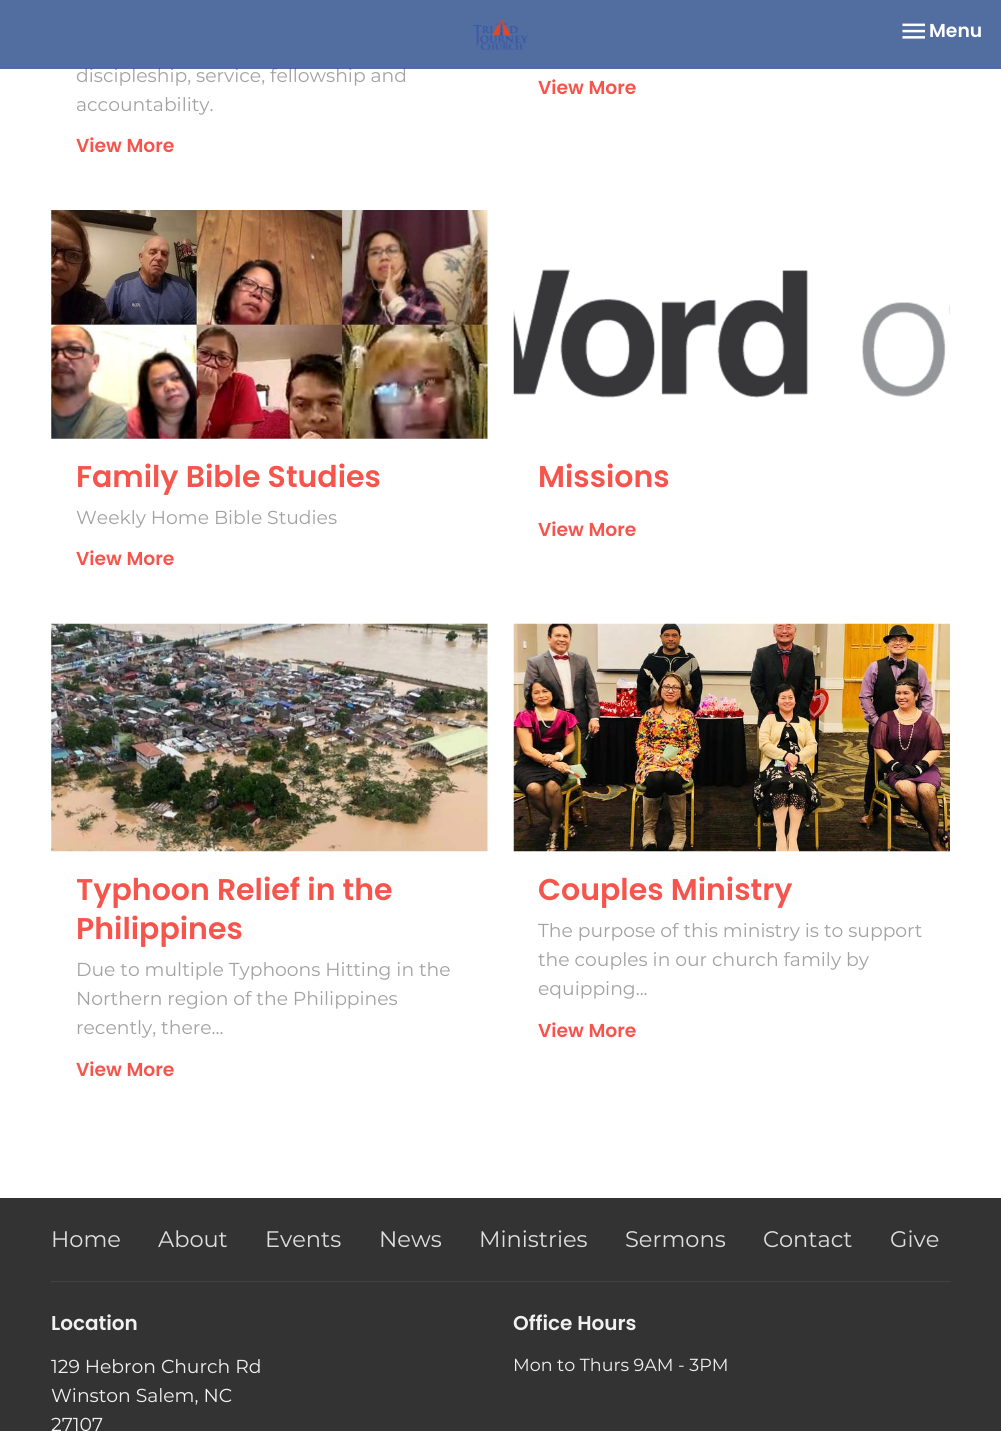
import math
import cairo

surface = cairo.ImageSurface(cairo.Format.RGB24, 1001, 1431)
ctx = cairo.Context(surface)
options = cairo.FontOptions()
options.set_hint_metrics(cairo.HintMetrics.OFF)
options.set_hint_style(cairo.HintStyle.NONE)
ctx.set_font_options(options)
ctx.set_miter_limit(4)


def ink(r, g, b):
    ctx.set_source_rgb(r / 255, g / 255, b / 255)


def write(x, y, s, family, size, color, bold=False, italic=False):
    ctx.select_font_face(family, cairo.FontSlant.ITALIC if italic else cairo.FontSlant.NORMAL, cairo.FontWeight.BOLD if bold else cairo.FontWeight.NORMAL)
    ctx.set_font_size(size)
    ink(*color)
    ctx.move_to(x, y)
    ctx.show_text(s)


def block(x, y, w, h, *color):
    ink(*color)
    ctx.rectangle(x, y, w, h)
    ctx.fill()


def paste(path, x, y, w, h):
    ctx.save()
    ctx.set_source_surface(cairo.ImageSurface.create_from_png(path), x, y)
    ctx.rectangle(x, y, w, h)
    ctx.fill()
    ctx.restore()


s1 = dict(family="Montserrat", size=18.75, color=(162, 162, 162))
s2 = dict(family="Poppins SemiBold", size=18.75, color=(255, 255, 255))
s3 = dict(family="Poppins SemiBold", size=18.75, color=(246, 85, 77))
s4 = dict(family="Poppins SemiBold", size=30, color=(246, 85, 77))
s5 = dict(family="Montserrat", size=22.5, color=(222, 222, 222))
s6 = dict(family="Poppins SemiBold", size=20, color=(241, 241, 241))
s7 = dict(family="Montserrat", size=18.75, color=(241, 241, 241))
s8 = dict(family="Montserrat", size=17.5, color=(241, 241, 241))

ink(255, 255, 255)
ctx.paint()
write(76, 82, "discipleship, service, fellowship and", **s1)
ctx.set_source_rgba(0.098, 0.243, 0.51, 0.75)
ctx.rectangle(0, 0, 1001, 69)
ctx.fill()
paste("pic1.png", 473, 19, 55, 31)
paste("pic2.png", 902, 23, 23, 16)
write(929, 37, "Menu", **s2)
write(76, 111, "accountability.", **s1)
write(76, 152, "View More", **s3)
write(538, 94, "View More", **s3)
paste("pic3.png", 51, 210, 437, 229)
write(76, 487, "Family Bible Studies", **s4)
write(76, 524, "Weekly Home Bible Studies", **s1)
write(76, 565, "View More", **s3)
paste("pic4.png", 513, 269, 437, 129)
write(538, 487, "Missions", **s4)
write(538, 536, "View More", **s3)
paste("pic5.png", 51, 623, 437, 229)
write(76, 900, "Typhoon Relief in the", **s4)
write(76, 939, "Philippines", **s4)
write(76, 976, "Due to multiple Typhoons Hitting in the", **s1)
write(76, 1005, "Northern region of the Philippines", **s1)
write(76, 1034, "recently, there...", **s1)
write(76, 1076, "View More", **s3)
paste("pic6.png", 513, 623, 437, 229)
write(538, 900, "Couples Ministry", **s4)
write(538, 937, "The purpose of this ministry is to support", **s1)
write(538, 966, "the couples in our church family by", **s1)
write(538, 995, "equipping...", **s1)
write(538, 1037, "View More", **s3)
block(0, 1198, 1001, 233, 51, 51, 51)
write(51, 1247, "Home", **s5)
write(158, 1247, "About", **s5)
write(265, 1247, "Events", **s5)
write(379, 1247, "News", **s5)
write(479, 1247, "Ministries", **s5)
write(625, 1247, "Sermons", **s5)
write(763, 1247, "Contact", **s5)
write(890, 1247, "Give", **s5)
block(51, 1281, 900, 1, 66, 66, 66)
write(51, 1330, "Location", **s6)
write(51, 1373, "129 Hebron Church Rd", **s7)
write(51, 1402, "Winston Salem, NC", **s7)
write(51, 1431, "27107", **s7)
write(513, 1330, "Office Hours", **s6)
write(513, 1371, "Mon to Thurs 9AM - 3PM", **s8)
surface.write_to_png("screenshot.png")
